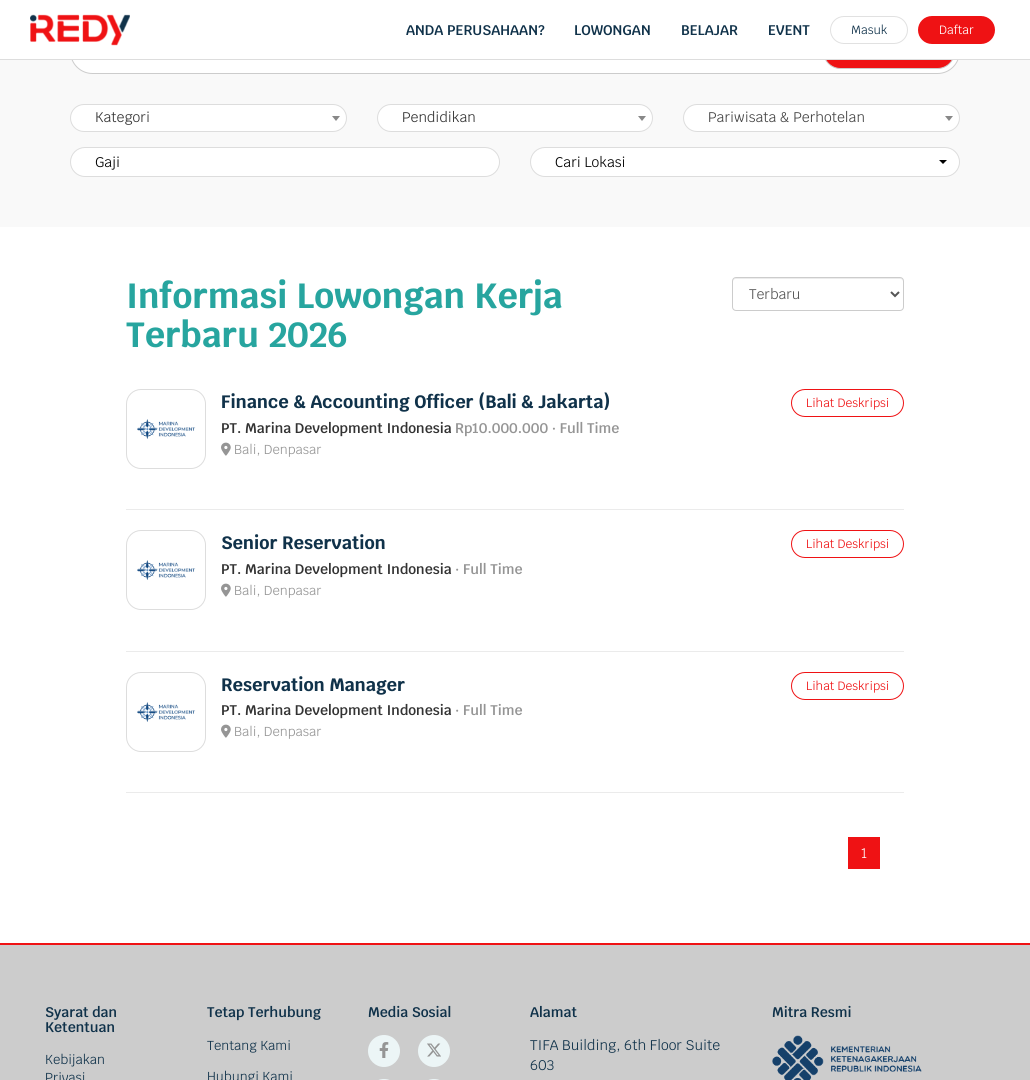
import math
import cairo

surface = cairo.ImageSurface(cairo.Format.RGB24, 1030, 1080)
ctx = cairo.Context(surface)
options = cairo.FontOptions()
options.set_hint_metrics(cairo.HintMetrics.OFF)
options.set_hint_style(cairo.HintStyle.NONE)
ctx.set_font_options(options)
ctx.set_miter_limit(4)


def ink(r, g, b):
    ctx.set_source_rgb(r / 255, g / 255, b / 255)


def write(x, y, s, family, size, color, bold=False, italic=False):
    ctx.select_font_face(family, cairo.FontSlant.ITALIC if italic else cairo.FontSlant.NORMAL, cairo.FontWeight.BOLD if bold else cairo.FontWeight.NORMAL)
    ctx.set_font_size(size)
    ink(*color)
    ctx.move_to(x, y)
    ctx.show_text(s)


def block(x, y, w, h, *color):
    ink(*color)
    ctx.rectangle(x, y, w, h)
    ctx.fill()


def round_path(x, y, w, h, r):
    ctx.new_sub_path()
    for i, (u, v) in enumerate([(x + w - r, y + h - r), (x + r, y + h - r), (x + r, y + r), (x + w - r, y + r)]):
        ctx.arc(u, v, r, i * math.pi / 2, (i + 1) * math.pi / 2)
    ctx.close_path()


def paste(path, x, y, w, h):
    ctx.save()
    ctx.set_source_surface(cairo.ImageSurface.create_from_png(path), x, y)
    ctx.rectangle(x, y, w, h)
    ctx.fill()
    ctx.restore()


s1 = dict(family="Krub SemiBold", size=14, color=(16, 50, 74))
s2 = dict(family="Krub", size=12, color=(16, 50, 74))
s3 = dict(family="Krub", size=12, color=(255, 255, 255))
s4 = dict(family="Krub", size=14, color=(51, 51, 51))
s5 = dict(family="Krub", size=14, color=(68, 68, 68))
s6 = dict(family="Krub", size=14, color=(0, 0, 0))
s7 = dict(family="Krub", size=35, color=(39, 165, 159), bold=True)
s8 = dict(family="Krub", size=14, color=(85, 85, 85))
s9 = dict(family="Krub", size=18, color=(16, 50, 74), bold=True)
s10 = dict(family="Krub SemiBold", size=14, color=(51, 51, 51))
s11 = dict(family="Krub SemiBold", size=14, color=(149, 149, 149))
s12 = dict(family="Krub", size=13, color=(149, 149, 149))
s13 = dict(family="Krub", size=12, color=(239, 18, 20))
s14 = dict(family="Krub", size=14, color=(255, 255, 255))
s15 = dict(family="Krub", size=13, color=(16, 50, 74))
s16 = dict(family="Krub", size=14, color=(16, 50, 74))

ink(255, 255, 255)
ctx.paint()
block(0, 60, 1030, 167, 249, 249, 249)
ink(255, 255, 255)
round_path(70.5, 29.5, 889, 44, 22)
ctx.fill_preserve()
ink(204, 204, 204)
ctx.set_line_width(1)
ctx.stroke()
ink(239, 18, 20)
round_path(823.5, 34.5, 131, 34, 17)
ctx.fill_preserve()
ink(204, 204, 204)
ctx.stroke()
block(70, 29, 890, 30, 255, 255, 255)
block(0, 59, 1030, 1, 221, 221, 221)
paste("pic1.png", 30, 14, 100, 32)
write(406, 35, "ANDA PERUSAHAAN?", **s1)
write(574, 35, "LOWONGAN", **s1)
write(681, 35, "BELAJAR", **s1)
write(768, 35, "EVENT", **s1)
round_path(830.5, 16.5, 77, 27, 13.5)
ink(225, 225, 225)
ctx.stroke()
write(851, 34, "Masuk", **s2)
ink(239, 18, 20)
round_path(918, 16, 77, 28, 14)
ctx.fill()
write(939, 34, "Daftar", **s3)
round_path(70.5, 104.5, 276, 27, 13.5)
ctx.fill_preserve()
ink(221, 221, 221)
ctx.stroke()
write(95, 122, "Kategori", **s4)
ink(136, 136, 136)
ctx.new_path()
ctx.move_to(332, 116)
ctx.line_to(340, 116)
ctx.line_to(336, 121)
ctx.close_path()
ctx.fill()
ink(255, 255, 255)
round_path(377.5, 104.5, 275, 27, 13.5)
ctx.fill_preserve()
ink(221, 221, 221)
ctx.stroke()
write(402, 122, "Pendidikan", **s4)
ink(136, 136, 136)
ctx.new_path()
ctx.move_to(638, 116)
ctx.line_to(646, 116)
ctx.line_to(642, 121)
ctx.close_path()
ctx.fill()
ink(255, 255, 255)
round_path(683.5, 104.5, 276, 27, 13.5)
ctx.fill_preserve()
ink(221, 221, 221)
ctx.stroke()
write(708, 122, "Pariwisata & Perhotelan", **s5)
ink(136, 136, 136)
ctx.new_path()
ctx.move_to(945, 116)
ctx.line_to(953, 116)
ctx.line_to(949, 121)
ctx.close_path()
ctx.fill()
ink(255, 255, 255)
round_path(70.5, 147.5, 429, 29, 14.5)
ctx.fill_preserve()
ink(221, 221, 221)
ctx.stroke()
write(95, 167, "Gaji", **s6)
ink(255, 255, 255)
round_path(530.5, 147.5, 429, 29, 14.5)
ctx.fill_preserve()
ink(221, 221, 221)
ctx.stroke()
write(555, 167, "Cari Lokasi", **s6)
ctx.new_path()
ctx.move_to(939, 160)
ctx.line_to(947, 160)
ctx.line_to(943, 164)
ctx.close_path()
ctx.fill()
write(126, 308, "Informasi Lowongan Kerja", **s7)
write(126, 347, "Terbaru 2026", **s7)
ink(236, 236, 236)
ctx.new_path()
ctx.move_to(736, 279)
ctx.line_to(900, 279)
ctx.curve_to(902, 279, 903, 280, 903, 282)
ctx.line_to(903, 281)
ctx.curve_to(903, 279, 902, 278, 900, 278)
ctx.line_to(736, 278)
ctx.curve_to(734, 278, 733, 279, 733, 281)
ctx.line_to(733, 282)
ctx.curve_to(733, 280, 734, 279, 736, 279)
ctx.close_path()
ctx.fill()
round_path(732.5, 277.5, 171, 33, 3.5)
ink(204, 204, 204)
ctx.stroke()
ctx.new_path()
ctx.move_to(891, 292)
ctx.line_to(895, 296)
ctx.line_to(899, 292)
ink(85, 85, 85)
ctx.set_line_width(2)
ctx.stroke()
write(749, 299, "Terbaru", **s8)
block(126, 509, 778, 1, 235, 235, 235)
round_path(126.5, 389.5, 79, 79, 14.5)
ink(221, 221, 221)
ctx.set_line_width(1)
ctx.stroke()
paste("pic2.png", 137, 419, 59, 20)
write(221, 408, "Finance & Accounting Officer (Bali & Jakarta)", **s9)
write(221, 433, "PT. Marina Development Indonesia", **s10)
write(455, 433, "Rp10.000.000 · Full Time", **s11)
paste("pic3.png", 221, 442, 10, 14)
write(234, 454, "Bali, Denpasar", **s12)
round_path(791.5, 389.5, 112, 27, 13.5)
ink(239, 18, 20)
ctx.stroke()
write(806, 407, "Lihat Deskripsi", **s13)
block(126, 651, 778, 1, 235, 235, 235)
round_path(126.5, 530.5, 79, 79, 14.5)
ink(221, 221, 221)
ctx.stroke()
paste("pic2.png", 137, 560, 59, 20)
write(221, 549, "Senior Reservation", **s9)
write(221, 574, "PT. Marina Development Indonesia", **s10)
write(455, 574, "· Full Time", **s11)
paste("pic3.png", 221, 583, 10, 14)
write(234, 595, "Bali, Denpasar", **s12)
round_path(791.5, 530.5, 112, 27, 13.5)
ink(239, 18, 20)
ctx.stroke()
write(806, 548, "Lihat Deskripsi", **s13)
block(126, 792, 778, 1, 235, 235, 235)
round_path(126.5, 672.5, 79, 79, 14.5)
ink(221, 221, 221)
ctx.stroke()
paste("pic2.png", 137, 702, 59, 20)
write(221, 691, "Reservation Manager", **s9)
write(221, 715, "PT. Marina Development Indonesia", **s10)
write(455, 715, "· Full Time", **s11)
paste("pic3.png", 221, 724, 10, 14)
write(234, 736, "Bali, Denpasar", **s12)
round_path(791.5, 672.5, 112, 27, 13.5)
ink(239, 18, 20)
ctx.stroke()
write(806, 690, "Lihat Deskripsi", **s13)
block(848, 837, 32, 32, 239, 18, 20)
write(861, 858, "1", **s14)
block(0, 945, 1030, 135, 204, 204, 204)
block(0, 943, 1030, 2, 239, 18, 20)
write(45, 1017, "Syarat dan", **s1)
write(45, 1032, "Ketentuan", **s1)
write(45, 1064, "Kebijakan", **s15)
write(45, 1082, "Privasi", **s15)
write(207, 1017, "Tetap Terhubung", **s1)
write(207, 1050, "Tentang Kami", **s15)
write(207, 1081, "Hubungi Kami", **s15)
write(368, 1017, "Media Sosial", **s1)
ink(236, 245, 246)
ctx.new_path()
ctx.arc(384, 1051, 16, 0, 2 * math.pi)
ctx.fill()
paste("pic4.png", 379, 1042, 10, 16)
ctx.arc(434, 1051, 16, 0, 2 * math.pi)
ctx.fill()
paste("pic5.png", 427, 1043, 14, 14)
round_path(368, 1079, 32, 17, 16)
ctx.fill()
round_path(418, 1079, 32, 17, 16)
ctx.fill()
write(530, 1017, "Alamat", **s1)
write(530, 1050, "TIFA Building, 6th Floor Suite", **s16)
write(530, 1070, "603", **s16)
write(772, 1017, "Mitra Resmi", **s1)
paste("pic6.png", 772, 1035, 150, 45)
surface.write_to_png("screenshot.png")
